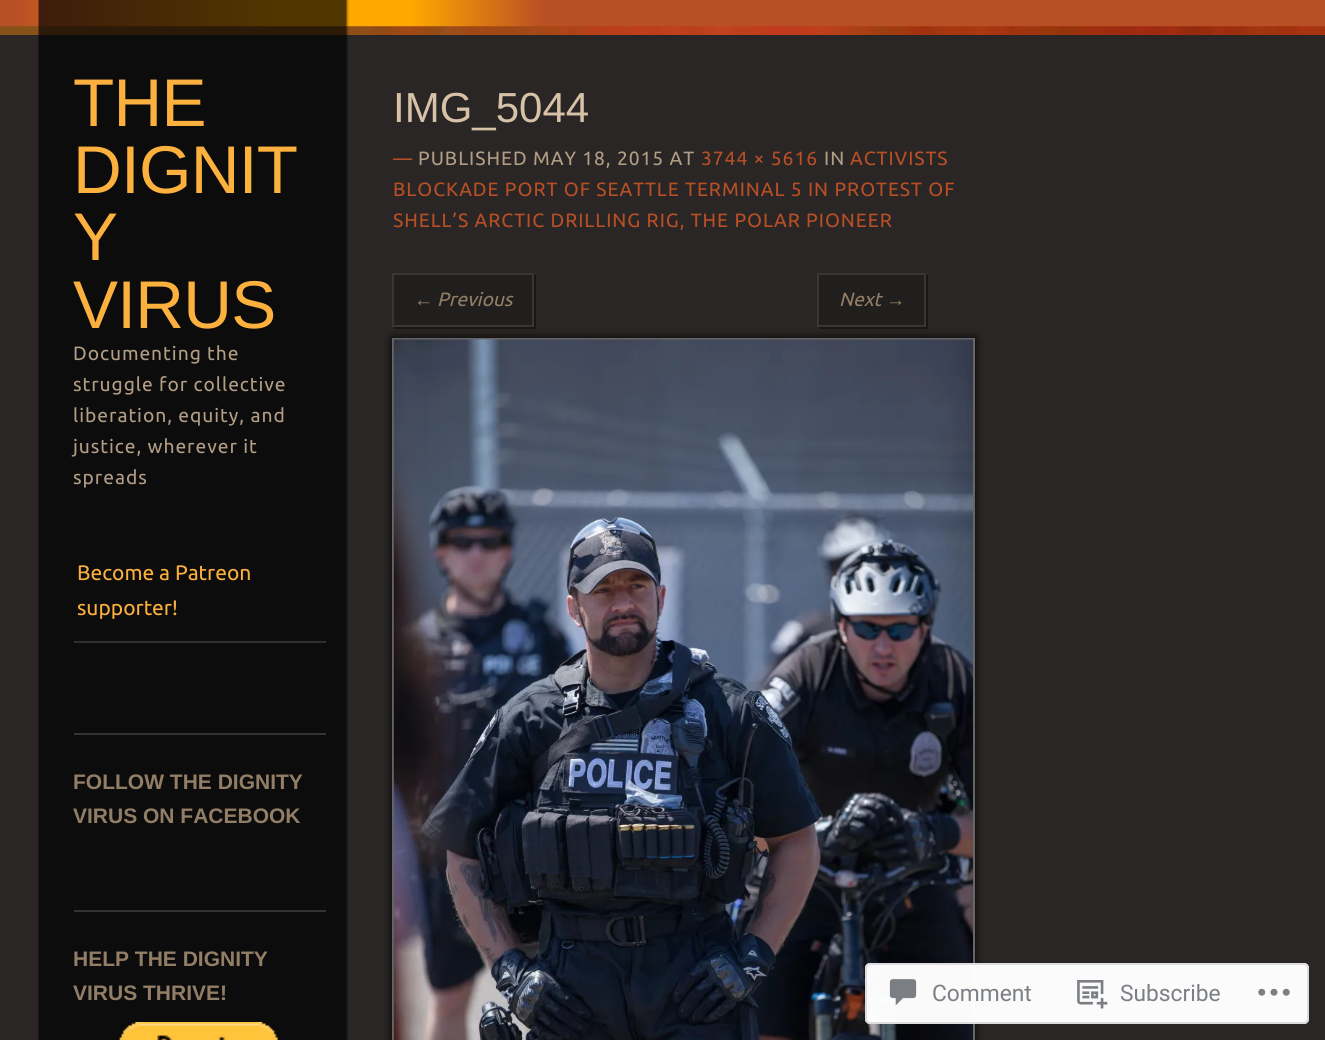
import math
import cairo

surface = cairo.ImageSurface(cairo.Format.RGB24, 1325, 1040)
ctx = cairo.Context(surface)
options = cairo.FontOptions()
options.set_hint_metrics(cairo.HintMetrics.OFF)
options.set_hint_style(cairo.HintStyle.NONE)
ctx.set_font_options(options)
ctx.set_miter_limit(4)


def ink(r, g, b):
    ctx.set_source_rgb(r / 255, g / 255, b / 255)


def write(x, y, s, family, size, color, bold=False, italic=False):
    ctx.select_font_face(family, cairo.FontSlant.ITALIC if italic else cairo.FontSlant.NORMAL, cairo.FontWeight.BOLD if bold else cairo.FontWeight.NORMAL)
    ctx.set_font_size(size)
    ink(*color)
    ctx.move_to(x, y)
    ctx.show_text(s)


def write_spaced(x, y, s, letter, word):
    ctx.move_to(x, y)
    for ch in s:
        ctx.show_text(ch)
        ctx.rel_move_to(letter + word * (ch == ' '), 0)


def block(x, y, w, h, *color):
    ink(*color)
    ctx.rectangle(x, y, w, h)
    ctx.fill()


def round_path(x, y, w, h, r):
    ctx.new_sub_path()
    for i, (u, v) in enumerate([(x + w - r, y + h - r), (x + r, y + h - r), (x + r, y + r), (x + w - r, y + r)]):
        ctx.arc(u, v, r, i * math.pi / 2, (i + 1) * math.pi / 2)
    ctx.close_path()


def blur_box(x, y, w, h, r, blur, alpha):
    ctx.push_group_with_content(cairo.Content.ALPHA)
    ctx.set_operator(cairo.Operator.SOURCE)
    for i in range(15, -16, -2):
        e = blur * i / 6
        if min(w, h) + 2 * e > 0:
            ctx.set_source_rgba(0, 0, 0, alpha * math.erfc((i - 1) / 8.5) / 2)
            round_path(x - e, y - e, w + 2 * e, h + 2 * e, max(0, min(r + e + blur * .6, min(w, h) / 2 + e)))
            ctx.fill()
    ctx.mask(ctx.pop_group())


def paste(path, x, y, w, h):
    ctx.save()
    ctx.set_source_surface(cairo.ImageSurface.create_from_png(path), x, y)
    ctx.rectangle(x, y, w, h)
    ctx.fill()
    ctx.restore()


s1 = dict(family="Ubuntu", size=21, color=(252, 176, 62))
s2 = dict(family="Liberation Sans", size=21, color=(146, 126, 102), bold=True)
s3 = dict(family="Liberation Sans", size=42, color=(215, 194, 168))
s4 = dict(family="Liberation Sans", size=19.25, color=(146, 126, 102), italic=True)
s5 = dict(family="Ubuntu", size=19.25, color=(146, 126, 102), italic=True)
s6 = dict(family="Roboto", size=22.75, color=(123, 127, 132))

ink(41, 38, 37)
ctx.paint()
gradient = cairo.LinearGradient(0, 18, 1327, 17)
gradient.add_color_stop_rgba(0.01, 0.725, 0.31, 0.145, 1)
gradient.add_color_stop_rgba(0.21, 1, 0.659, 0, 1)
gradient.add_color_stop_rgba(0.31, 1, 0.659, 0, 1)
gradient.add_color_stop_rgba(0.41, 0.725, 0.31, 0.145, 1)
ctx.set_source(gradient)
ctx.rectangle(0, 0, 1325, 27)
ctx.fill()
paste("pic1.png", 0, 26, 1325, 9)
paste("pic2.png", 38, 0, 311, 1040)
ctx.select_font_face("Liberation Sans")
ctx.set_font_size(67.5)
ink(252, 176, 62)
write_spaced(73, 126, "THE", -0.75, 0)
write_spaced(73, 193, "DIGNIT", -0.75, 0)
write_spaced(73, 260, "Y", -0.75, 0)
write_spaced(73, 328, "VIRUS", -0.75, 0)
ctx.select_font_face("Ubuntu")
ctx.set_font_size(19.25)
ink(178, 157, 133)
write_spaced(73, 360, "Documenting the", 0.95, 0)
write_spaced(73, 391, "struggle for collective", 0.95, 0)
write_spaced(73, 422, "liberation, equity, and", 0.95, 0)
write_spaced(73, 453, "justice, wherever it", 0.95, 0)
write_spaced(73, 484, "spreads", 0.95, 0)
block(74, 641, 252, 2, 48, 47, 45)
write(77, 580, "Become a Patreon", **s1)
write(77, 615, "supporter!", **s1)
block(74, 733, 252, 2, 51, 51, 51)
write(73, 789, "FOLLOW THE DIGNITY", **s2)
write(73, 823, "VIRUS ON FACEBOOK", **s2)
block(74, 910, 252, 2, 51, 51, 51)
write(73, 966, "HELP THE DIGNITY", **s2)
write(73, 1000, "VIRUS THRIVE!", **s2)
paste("pic3.png", 119, 1022, 159, 18)
write(393, 122, "IMG_5044", **s3)
ctx.select_font_face("Ubuntu")
ctx.set_font_size(19.25)
ink(185, 79, 37)
write_spaced(393, 165, "—", 0.95, 0)
ink(178, 157, 133)
write_spaced(418, 165, "PUBLISHED MAY 18, 2015 AT", 0.95, 0)
ink(185, 79, 37)
write_spaced(701, 165, "3744 × 5616", 0.95, 0)
ink(178, 157, 133)
write_spaced(824, 165, "IN", 0.95, 0)
ink(185, 79, 37)
write_spaced(850, 165, "ACTIVISTS", 0.95, 0)
write_spaced(393, 196, "BLOCKADE PORT OF SEATTLE TERMINAL 5 IN PROTEST OF", 0.95, 0)
write_spaced(393, 227, "SHELL’S ARCTIC DRILLING RIG, THE POLAR PIONEER", 0.95, 0)
ink(0, 0, 0)
blur_box(392, 338, 583, 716, 0, 4.5, 0.9)
ink(24, 23, 22)
ctx.new_path()
ctx.move_to(394, 327)
ctx.line_to(394, 329)
ctx.line_to(536, 329)
ctx.line_to(536, 275)
ctx.line_to(534, 275)
ctx.line_to(534, 327)
ctx.close_path()
ctx.fill()
ink(33, 30, 30)
ctx.rectangle(393, 274, 140, 52)
ctx.fill_preserve()
ink(57, 54, 54)
ctx.stroke()
write(414, 306, "←", **s4)
write(437, 306, "Previous", **s5)
ink(24, 23, 22)
ctx.new_path()
ctx.move_to(819, 327)
ctx.line_to(819, 329)
ctx.line_to(928, 329)
ctx.line_to(928, 275)
ctx.line_to(926, 275)
ctx.line_to(926, 327)
ctx.close_path()
ctx.fill()
ink(33, 30, 30)
ctx.rectangle(818, 274, 107, 52)
ctx.fill_preserve()
ink(57, 54, 54)
ctx.stroke()
write(839, 306, "Next", **s5)
write(886, 306, "→", **s4)
ctx.rectangle(393, 339, 581, 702)
ink(102, 102, 102)
ctx.stroke()
paste("pic4.png", 393, 339, 580, 701)
ctx.set_source_rgba(1, 1, 1, 0.98)
round_path(865, 963, 444, 61, 5)
ctx.fill()
round_path(866, 964, 442, 59, 4)
ctx.set_source_rgba(0.863, 0.863, 0.871, 0.98)
ctx.stroke()
paste("pic5.png", 889, 979, 28, 27)
write(932, 1001, "Comment", **s6)
paste("pic6.png", 1077, 980, 31, 29)
write(1120, 1001, "Subscribe", **s6)
paste("pic7.png", 1258, 988, 32, 8)
surface.write_to_png("screenshot.png")
